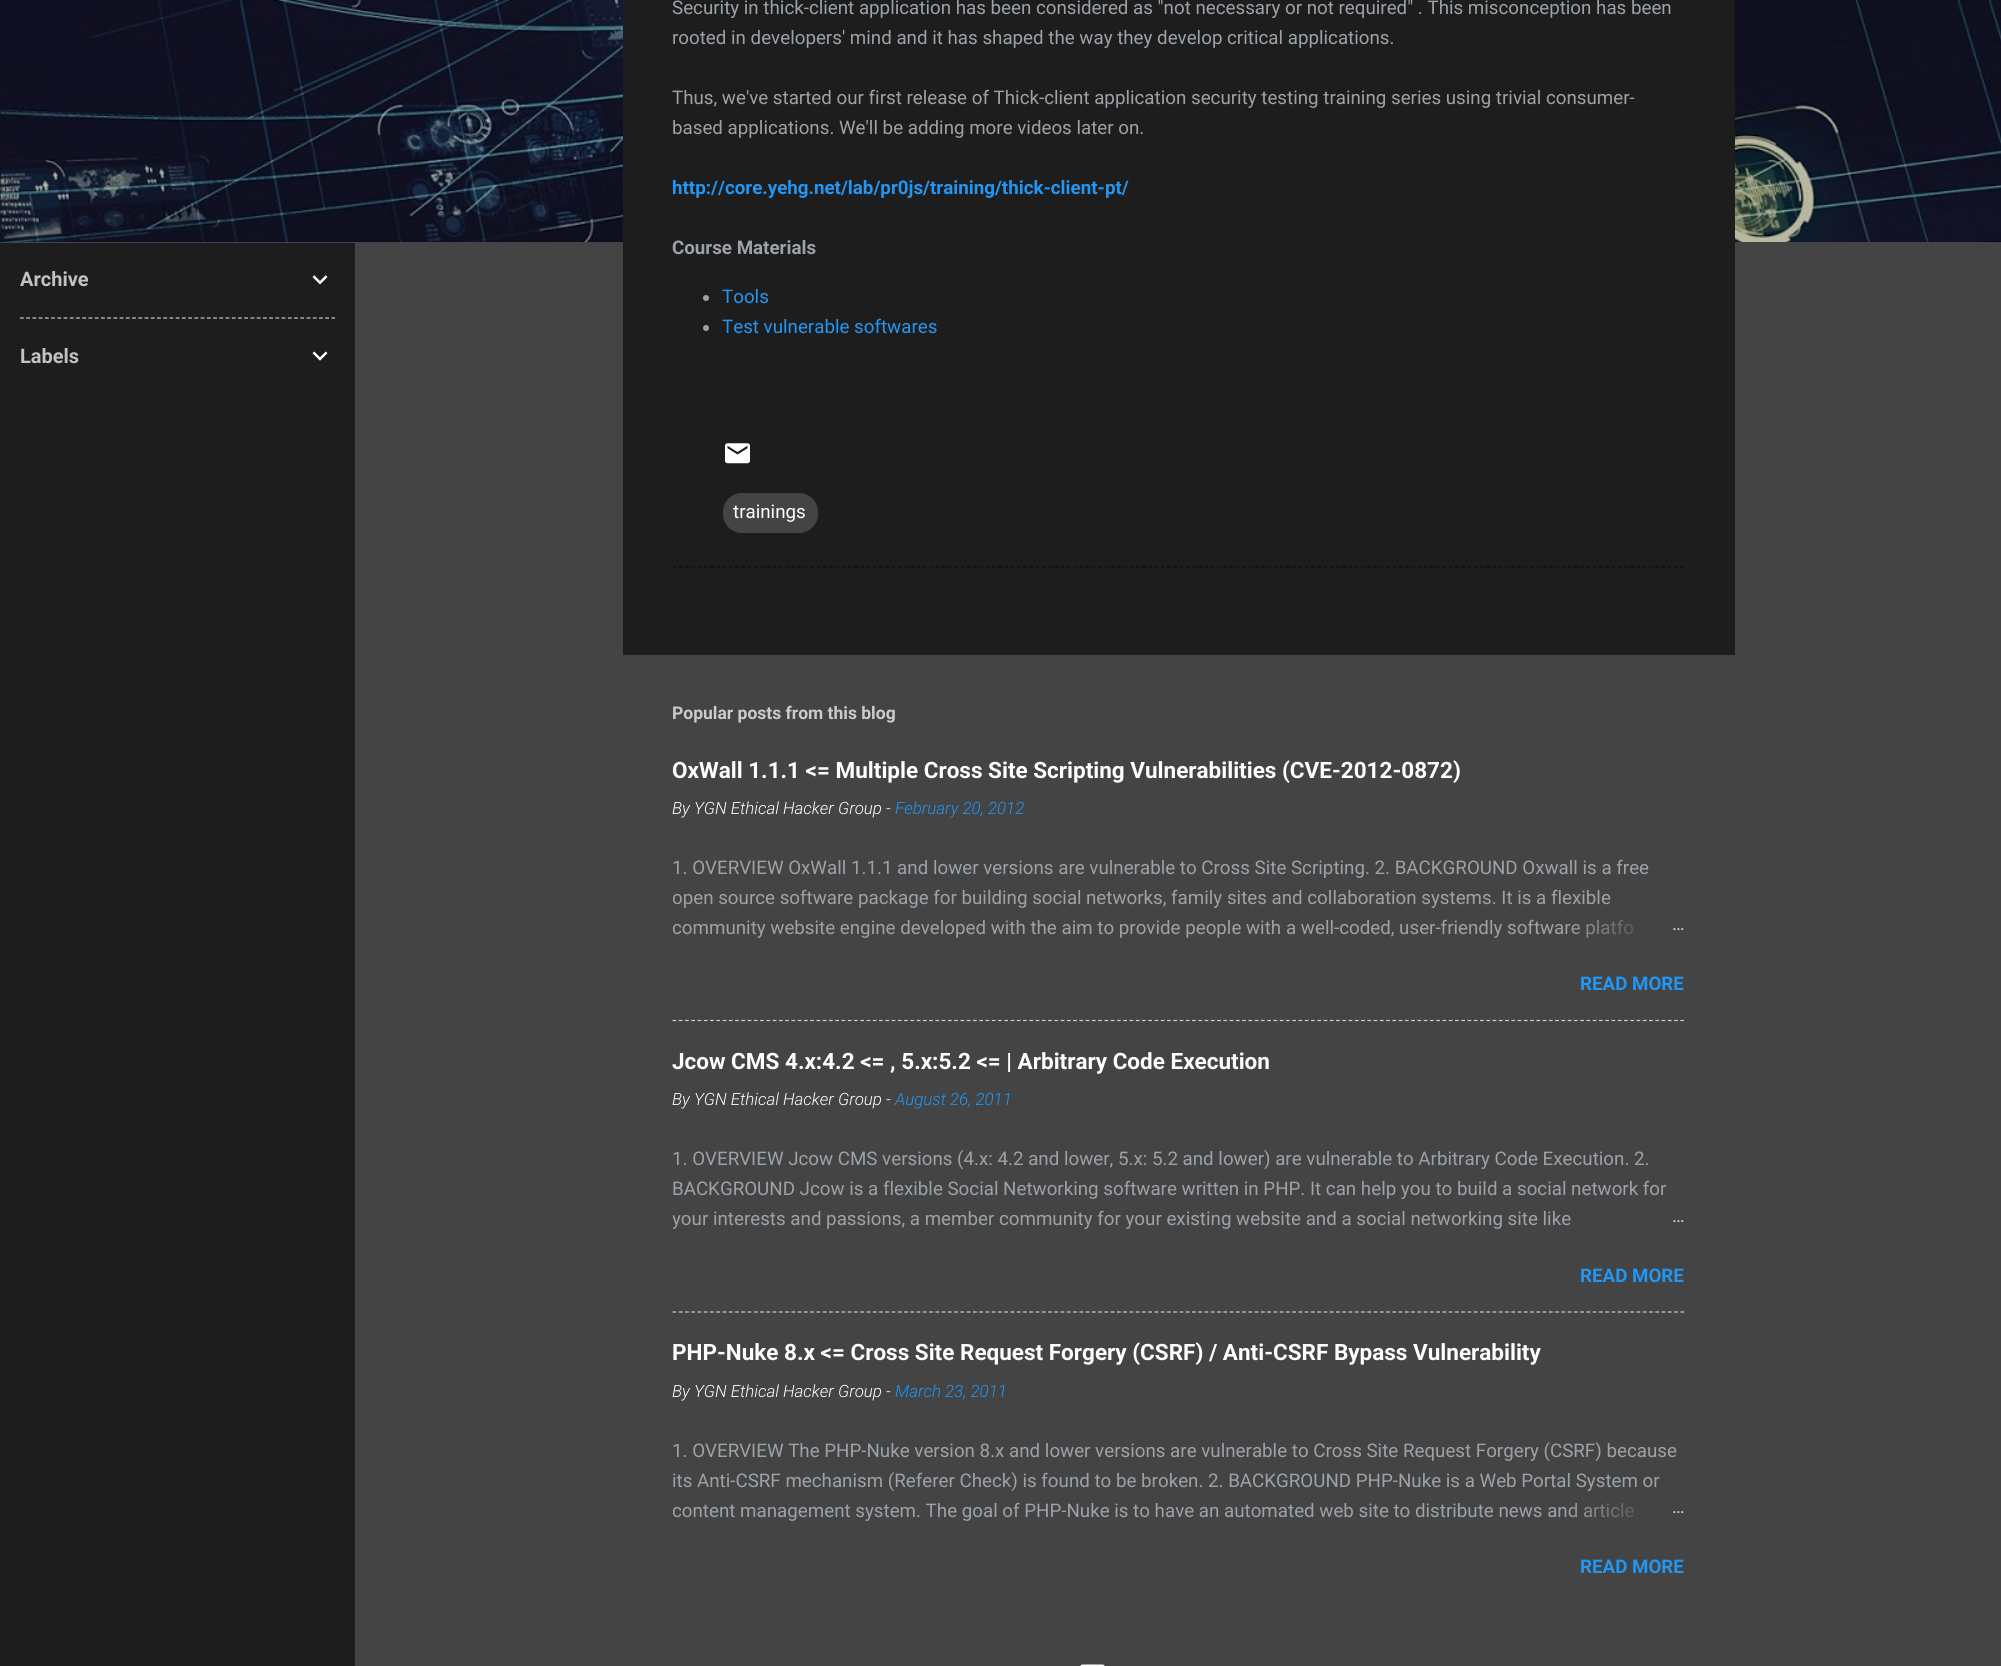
import math
import cairo

surface = cairo.ImageSurface(cairo.Format.RGB24, 2001, 1666)
ctx = cairo.Context(surface)
options = cairo.FontOptions()
options.set_hint_metrics(cairo.HintMetrics.OFF)
options.set_hint_style(cairo.HintStyle.NONE)
ctx.set_font_options(options)
ctx.set_miter_limit(4)


def ink(r, g, b):
    ctx.set_source_rgb(r / 255, g / 255, b / 255)


def write(x, y, s, family, size, color, bold=False, italic=False):
    ctx.select_font_face(family, cairo.FontSlant.ITALIC if italic else cairo.FontSlant.NORMAL, cairo.FontWeight.BOLD if bold else cairo.FontWeight.NORMAL)
    ctx.set_font_size(size)
    ink(*color)
    ctx.move_to(x, y)
    ctx.show_text(s)


def block(x, y, w, h, *color):
    ink(*color)
    ctx.rectangle(x, y, w, h)
    ctx.fill()


def round_path(x, y, w, h, r):
    ctx.new_sub_path()
    for i, (u, v) in enumerate([(x + w - r, y + h - r), (x + r, y + h - r), (x + r, y + r), (x + w - r, y + r)]):
        ctx.arc(u, v, r, i * math.pi / 2, (i + 1) * math.pi / 2)
    ctx.close_path()


def paste(path, x, y, w, h):
    ctx.save()
    ctx.set_source_surface(cairo.ImageSurface.create_from_png(path), x, y)
    ctx.rectangle(x, y, w, h)
    ctx.fill()
    ctx.restore()


s1 = dict(family="Roboto", size=20, color=(197, 193, 193), bold=True)
s2 = dict(family="Roboto", size=18.75, color=(155, 162, 168))
s3 = dict(family="Roboto", size=18.75, color=(33, 150, 243), bold=True)
s4 = dict(family="Roboto", size=18.75, color=(155, 162, 168), bold=True)
s5 = dict(family="Roboto", size=18.75, color=(33, 150, 243))
s6 = dict(family="Roboto", size=18.75, color=(255, 255, 255))
s7 = dict(family="Roboto", size=17.5, color=(204, 204, 204), bold=True)
s8 = dict(family="Roboto", size=22.5, color=(255, 255, 255), bold=True)
s9 = dict(family="Roboto Light", size=16.9, color=(255, 255, 255), italic=True)
s10 = dict(family="Roboto Light", size=16.9, color=(33, 150, 243), italic=True)
s11 = dict(family="Roboto", size=18.75, color=(204, 204, 204))

ink(68, 68, 68)
ctx.paint()
block(0, 243, 355, 1423, 29, 29, 29)
write(20, 286, "Archive", **s1)
paste("pic1.png", 312, 275, 16, 10)
ctx.new_path()
ctx.move_to(20, 318)
ctx.line_to(335, 318)
ink(204, 204, 204)
ctx.set_line_width(1.2)
ctx.set_dash([3.75, 2.48])
ctx.stroke()
write(20, 363, "Labels", **s1)
paste("pic2.png", 312, 351, 16, 10)
paste("pic3.png", 0, 0, 2001, 242)
block(623, 0, 1112, 655, 29, 29, 29)
write(672, 14, "Security in thick-client application has been considered as \"not necessary or not required\" . This misconception has been", **s2)
write(672, 44, "rooted in developers' mind and it has shaped the way they develop critical applications.", **s2)
write(672, 104, "Thus, we've started our first release of Thick-client application security testing training series using trivial consumer-", **s2)
write(672, 134, "based applications. We'll be adding more videos later on.", **s2)
write(672, 194, "http://core.yehg.net/lab/pr0js/training/thick-client-pt/", **s3)
write(672, 254, "Course Materials", **s4)
ctx.new_path()
ctx.arc(706, 298, 3, 0, 2 * math.pi)
ctx.fill()
write(722, 303, "Tools", **s5)
ink(155, 162, 168)
ctx.new_path()
ctx.arc(706, 328, 3, 0, 2 * math.pi)
ctx.fill()
write(722, 333, "Test vulnerable softwares", **s5)
paste("pic4.png", 725, 443, 25, 21)
ink(68, 68, 68)
round_path(723.5, 493.5, 94, 39, 18.5)
ctx.fill_preserve()
ctx.set_line_width(1)
ctx.set_dash([])
ctx.stroke()
write(733, 518, "trainings", **s6)
ctx.new_path()
ctx.move_to(672.5, 567)
ctx.line_to(1685, 567)
ink(13, 13, 13)
ctx.set_line_width(1.2)
ctx.set_dash([3.75, 2.51])
ctx.stroke()
write(672, 719, "Popular posts from this blog", **s7)
write(672, 778, "OxWall 1.1.1 <= Multiple Cross Site Scripting Vulnerabilities (CVE-2012-0872)", **s8)
write(672, 814, "By YGN Ethical Hacker Group", **s9)
write(886, 814, "-", **s9)
write(895, 814, "February 20, 2012", **s10)
write(672, 874, "1. OVERVIEW OxWall 1.1.1 and lower versions are vulnerable to Cross Site Scripting. 2. BACKGROUND Oxwall is a free", **s2)
ctx.save()
ctx.rectangle(673, 853, 1012, 90)
ctx.clip()
write(672, 904, "open source software package for building social", **s2)
ctx.restore()
write(1086, 904, "networks, family sites and collaboration systems. It is a flexible", **s2)
ctx.save()
ctx.rectangle(673, 853, 1012, 90)
ctx.clip()
write(672, 934, "community website engine developed with the aim to provide people with", **s2)
ctx.restore()
write(1286, 934, "a well-coded, user-friendly software platfo", **s2)
gradient = cairo.LinearGradient(1685, 928, 1565, 928)
gradient.add_color_stop_rgba(0, 0.267, 0.267, 0.267, 1)
gradient.add_color_stop_rgba(0.2, 0.267, 0.267, 0.267, 1)
gradient.add_color_stop_rgba(1, 0.267, 0.267, 0.267, 0)
ctx.set_source(gradient)
ctx.rectangle(1568, 919, 65, 19)
ctx.fill()
write(1672, 930, "…", **s11)
write(1580, 990, "READ MORE", **s3)
ctx.new_path()
ctx.move_to(672.5, 1020.5)
ctx.line_to(1685, 1020.5)
ink(204, 204, 204)
ctx.stroke()
write(672, 1069, "Jcow CMS 4.x:4.2 <= , 5.x:5.2 <= | Arbitrary Code Execution", **s8)
write(672, 1105, "By YGN Ethical Hacker Group", **s9)
write(886, 1105, "-", **s9)
write(895, 1105, "August 26, 2011", **s10)
write(672, 1165, "1. OVERVIEW Jcow CMS versions (4.x: 4.2 and lower, 5.x: 5.2 and lower) are vulnerable to Arbitrary Code Execution. 2.", **s2)
write(672, 1195, "BACKGROUND Jcow is a flexible Social Networking software written in PHP. It can help you to build a social network for", **s2)
ctx.save()
ctx.rectangle(673, 1144, 1012, 90)
ctx.clip()
write(672, 1225, "your interests and passions, a member community for your existing website and a social networking site like", **s2)
ctx.restore()
gradient = cairo.LinearGradient(1685, 1219, 1565, 1219)
gradient.add_color_stop_rgba(0, 0.267, 0.267, 0.267, 1)
gradient.add_color_stop_rgba(0.2, 0.267, 0.267, 0.267, 1)
gradient.add_color_stop_rgba(1, 0.267, 0.267, 0.267, 0)
ctx.set_source(gradient)
ctx.rectangle(1567, 1216, 3, 9)
ctx.fill()
write(1672, 1222, "…", **s11)
write(1580, 1282, "READ MORE", **s3)
ctx.new_path()
ctx.move_to(672.5, 1312)
ctx.line_to(1685, 1312)
ink(204, 204, 204)
ctx.stroke()
write(672, 1360, "PHP-Nuke 8.x <= Cross Site Request Forgery (CSRF) / Anti-CSRF Bypass Vulnerability", **s8)
write(672, 1397, "By YGN Ethical Hacker Group", **s9)
write(886, 1397, "-", **s9)
write(895, 1397, "March 23, 2011", **s10)
write(672, 1457, "1. OVERVIEW The PHP-Nuke version 8.x and lower versions are vulnerable to Cross Site Request Forgery (CSRF) because", **s2)
write(672, 1487, "its Anti-CSRF mechanism (Referer Check) is found to be broken. 2. BACKGROUND PHP-Nuke is a Web Portal System or", **s2)
ctx.save()
ctx.rectangle(673, 1435, 1012, 90)
ctx.clip()
write(672, 1517, "content management system. The goal of PHP-Nuke is to have an automated web site to distribute news and article", **s2)
ctx.restore()
gradient = cairo.LinearGradient(1685, 1510, 1565, 1510)
gradient.add_color_stop_rgba(0, 0.267, 0.267, 0.267, 1)
gradient.add_color_stop_rgba(0.2, 0.267, 0.267, 0.267, 1)
gradient.add_color_stop_rgba(1, 0.267, 0.267, 0.267, 0)
ctx.set_source(gradient)
ctx.rectangle(1569, 1502, 65, 16)
ctx.fill()
write(1672, 1513, "…", **s11)
write(1580, 1573, "READ MORE", **s3)
paste("pic5.png", 1080, 1664, 25, 2)
surface.write_to_png("screenshot.png")
